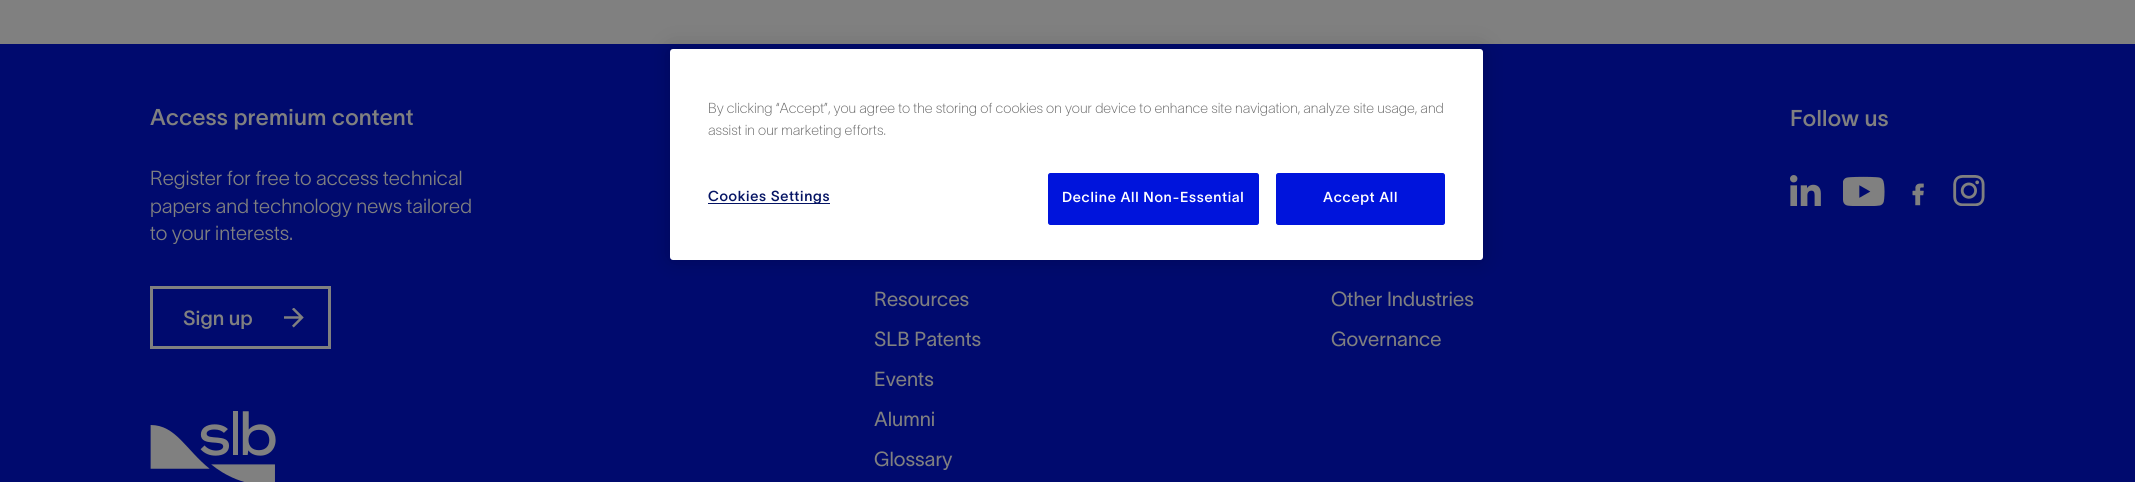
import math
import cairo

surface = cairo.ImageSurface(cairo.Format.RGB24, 2135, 482)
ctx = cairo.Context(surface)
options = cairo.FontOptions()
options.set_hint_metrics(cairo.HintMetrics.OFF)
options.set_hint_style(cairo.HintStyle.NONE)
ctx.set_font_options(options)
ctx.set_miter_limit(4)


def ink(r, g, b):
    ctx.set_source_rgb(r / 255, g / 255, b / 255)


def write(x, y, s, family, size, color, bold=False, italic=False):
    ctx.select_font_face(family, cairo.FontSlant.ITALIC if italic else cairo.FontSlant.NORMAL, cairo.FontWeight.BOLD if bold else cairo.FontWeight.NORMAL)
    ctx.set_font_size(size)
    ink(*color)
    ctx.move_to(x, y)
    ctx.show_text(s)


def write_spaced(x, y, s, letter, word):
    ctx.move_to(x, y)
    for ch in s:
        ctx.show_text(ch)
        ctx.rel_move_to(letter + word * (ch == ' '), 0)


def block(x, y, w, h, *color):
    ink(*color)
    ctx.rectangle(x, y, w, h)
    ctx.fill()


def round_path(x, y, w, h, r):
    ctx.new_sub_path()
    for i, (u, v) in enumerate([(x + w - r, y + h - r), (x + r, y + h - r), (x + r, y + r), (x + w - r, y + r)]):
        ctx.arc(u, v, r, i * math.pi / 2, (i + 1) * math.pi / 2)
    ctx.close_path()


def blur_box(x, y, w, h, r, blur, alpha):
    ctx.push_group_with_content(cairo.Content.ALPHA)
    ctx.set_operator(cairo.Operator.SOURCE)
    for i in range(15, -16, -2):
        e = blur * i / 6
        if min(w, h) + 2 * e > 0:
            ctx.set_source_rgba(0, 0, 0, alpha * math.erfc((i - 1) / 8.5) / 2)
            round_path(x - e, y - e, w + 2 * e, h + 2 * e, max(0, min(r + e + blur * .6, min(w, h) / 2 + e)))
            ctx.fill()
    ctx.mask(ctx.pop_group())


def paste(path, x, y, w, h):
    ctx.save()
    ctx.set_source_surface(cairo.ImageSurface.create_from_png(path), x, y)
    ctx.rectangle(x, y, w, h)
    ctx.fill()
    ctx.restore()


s1 = dict(family="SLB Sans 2", size=14.23, color=(105, 105, 105))
s2 = dict(family="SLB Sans", size=20, color=(128, 128, 128))
s3 = dict(family="SLB Sans", size=20, color=(128, 128, 128), bold=True)
s4 = dict(family="SLB Sans Medium", size=20, color=(128, 128, 128))

ink(128, 128, 128)
ctx.paint()
block(0, 44, 2135, 438, 0, 10, 110)
ink(0, 0, 0)
blur_box(670, 49, 813, 211, 3, 11, 0.2)
ink(255, 255, 255)
round_path(670, 49, 813, 211, 3)
ctx.fill()
write(708, 113, "By clicking “Accept”, you agree to the storing of cookies on your device to enhance site navigation, analyze site usage, and", **s1)
write(708, 135, "assist in our marketing efforts.", **s1)
block(708, 203, 122, 1, 5, 20, 100)
ctx.select_font_face("SLB Sans", cairo.FontSlant.NORMAL, cairo.FontWeight.BOLD)
write_spaced(708, 201, "Cookies Settings", 0.7, 0)
ink(0, 20, 220)
round_path(1048.5, 173.5, 210, 51, 2)
ctx.fill_preserve()
ctx.set_line_width(1)
ctx.stroke()
ink(255, 255, 255)
write_spaced(1062, 202, "Decline All Non-Essential", 0.7, 0)
ink(0, 20, 220)
round_path(1276.5, 173.5, 168, 51, 2)
ctx.fill_preserve()
ctx.stroke()
ink(255, 255, 255)
write_spaced(1323, 202, "Accept All", 0.7, 0)
ctx.set_font_size(22.5)
ink(128, 128, 128)
write_spaced(150, 125, "Access premium content", 0.25, 0)
write(150, 185, "Register for free to access technical", **s2)
write(150, 213, "papers and technology news tailored", **s2)
write(150, 240, "to your interests.", **s2)
ctx.rectangle(151.5, 287.5, 178, 60)
ctx.set_line_width(3)
ctx.stroke()
write(183, 325, "Sign up", **s3)
paste("pic1.png", 284, 308, 20, 20)
paste("pic2.png", 150, 411, 126, 71)
ctx.set_font_size(22.5)
write_spaced(1790, 126, "Follow us", 0.25, 0)
paste("pic3.png", 1790, 175, 31, 31)
paste("pic4.png", 1843, 176, 42, 30)
paste("pic5.png", 1912, 183, 12, 23)
paste("pic6.png", 1953, 175, 32, 31)
write(874, 306, "Resources", **s4)
write(874, 346, "SLB Patents", **s4)
write(874, 386, "Events", **s4)
write(874, 426, "Alumni", **s4)
write(874, 466, "Glossary", **s4)
write(1331, 306, "Other Industries", **s4)
write(1331, 346, "Governance", **s4)
surface.write_to_png("screenshot.png")
